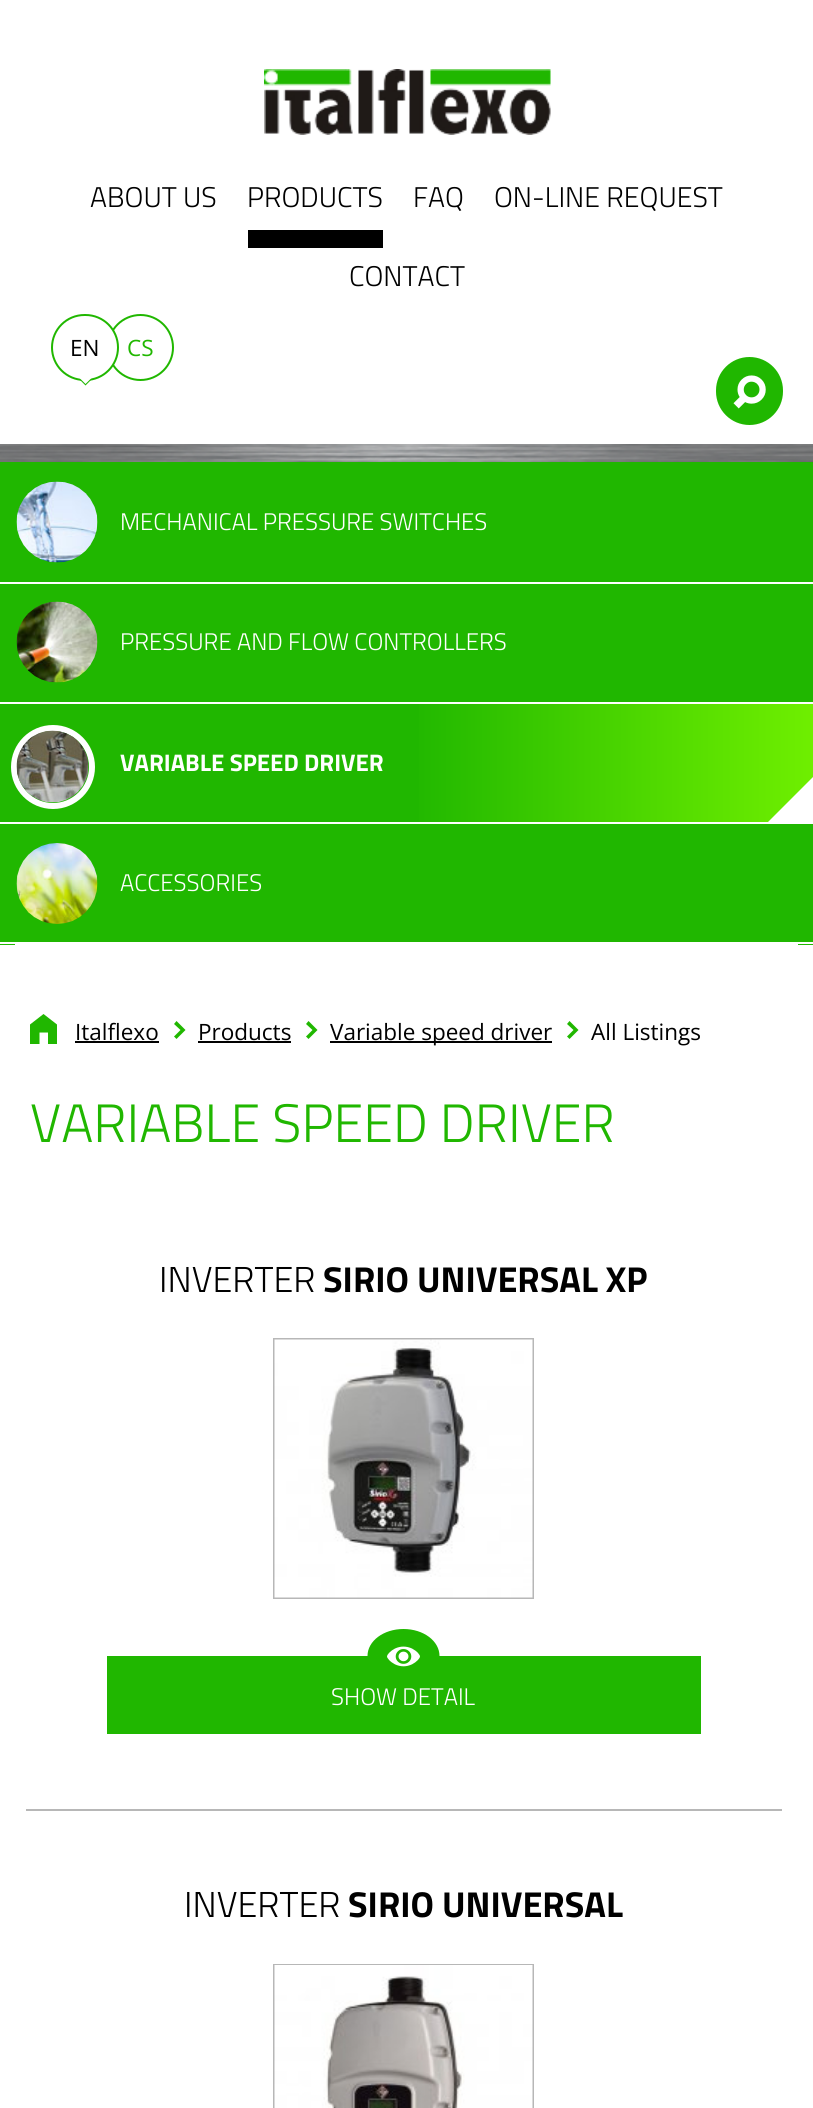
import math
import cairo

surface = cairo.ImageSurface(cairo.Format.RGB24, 813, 2108)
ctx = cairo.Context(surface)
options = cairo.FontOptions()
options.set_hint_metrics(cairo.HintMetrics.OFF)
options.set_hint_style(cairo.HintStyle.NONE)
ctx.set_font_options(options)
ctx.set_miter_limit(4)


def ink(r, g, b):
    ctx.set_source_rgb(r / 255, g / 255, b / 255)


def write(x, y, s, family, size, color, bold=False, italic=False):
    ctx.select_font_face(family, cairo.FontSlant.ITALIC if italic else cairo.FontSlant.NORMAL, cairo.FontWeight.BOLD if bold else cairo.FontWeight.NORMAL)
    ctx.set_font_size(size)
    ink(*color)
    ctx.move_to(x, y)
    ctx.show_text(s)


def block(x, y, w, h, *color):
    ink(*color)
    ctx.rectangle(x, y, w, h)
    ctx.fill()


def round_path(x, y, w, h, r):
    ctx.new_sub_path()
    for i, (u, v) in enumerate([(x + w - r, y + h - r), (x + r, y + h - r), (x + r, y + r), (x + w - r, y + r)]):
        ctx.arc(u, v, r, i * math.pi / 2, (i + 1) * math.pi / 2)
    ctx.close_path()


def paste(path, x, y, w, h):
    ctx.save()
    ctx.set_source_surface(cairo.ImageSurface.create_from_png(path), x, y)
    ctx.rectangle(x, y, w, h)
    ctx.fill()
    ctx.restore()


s1 = dict(family="Titillium Web Light", size=28.5, color=(0, 0, 0))
s2 = dict(family="Open Sans", size=22.5, color=(0, 0, 0))
s3 = dict(family="Open Sans", size=22.5, color=(32, 183, 0))
s4 = dict(family="Titillium Web Light", size=24, color=(255, 255, 255))
s5 = dict(family="Titillium Web", size=24, color=(255, 255, 255), bold=True)
s6 = dict(family="Titillium Web Light", size=54, color=(32, 183, 0))
s7 = dict(family="Titillium Web Light", size=36, color=(0, 0, 0))
s8 = dict(family="Titillium Web", size=36, color=(0, 0, 0), bold=True)

ink(255, 255, 255)
ctx.paint()
paste("pic1.png", 264, 69, 287, 66)
write(90, 207, "ABOUT US", **s1)
write(247, 207, "PRODUCTS", **s1)
block(248, 230, 135, 18, 0, 0, 0)
write(413, 207, "FAQ", **s1)
write(494, 207, "ON-LINE REQUEST", **s1)
write(349, 286, "CONTACT", **s1)
ctx.new_path()
ctx.arc(140.5, 347.5, 32.5, 0, 2 * math.pi)
ink(32, 183, 0)
ctx.stroke()
ink(255, 255, 255)
round_path(52, 315, 66, 65, 32.5)
ctx.fill_preserve()
ink(32, 183, 0)
ctx.stroke()
write(70, 356, "EN", **s2)
ink(32, 183, 0)
ctx.new_path()
ctx.move_to(79.5, 379.5)
ctx.line_to(91.5, 379.5)
ctx.line_to(85.5, 385.5)
ctx.close_path()
ctx.fill()
ink(255, 255, 255)
ctx.new_path()
ctx.move_to(79.5, 378)
ctx.line_to(91.5, 378)
ctx.line_to(85.5, 384)
ctx.close_path()
ctx.fill()
write(127, 356, "CS", **s3)
round_path(717, 358, 65, 66, 32.5)
ctx.fill_preserve()
ctx.stroke()
paste("pic2.png", 733, 375, 33, 34)
paste("pic3.png", 0, 444, 813, 18)
block(0, 462, 813, 483, 32, 183, 0)
block(15, 944, 783, 1, 255, 255, 255)
block(0, 582, 813, 2, 255, 255, 255)
paste("pic4.png", 16, 481, 82, 82)
write(120, 530, "MECHANICAL PRESSURE SWITCHES", **s4)
block(0, 702, 813, 2, 255, 255, 255)
paste("pic5.png", 16, 601, 82, 82)
write(120, 650, "PRESSURE AND FLOW CONTROLLERS", **s4)
gradient = cairo.LinearGradient(0, 763, 813, 763)
gradient.add_color_stop_rgba(0.5, 0.125, 0.718, 0, 1)
gradient.add_color_stop_rgba(1, 0.435, 0.937, 0, 1)
ctx.set_source(gradient)
ctx.rectangle(419, 704, 394, 118)
ctx.fill()
block(0, 822, 813, 2, 255, 255, 255)
ctx.arc(53, 767, 39, 0, 2 * math.pi)
ctx.set_line_width(6)
ctx.stroke()
paste("pic6.png", 16, 730, 73, 73)
write(120, 771, "VARIABLE SPEED DRIVER", **s5)
ctx.new_path()
ctx.move_to(813, 777)
ctx.line_to(813, 822)
ctx.line_to(768, 822)
ctx.close_path()
ctx.fill()
block(0, 942, 813, 2, 255, 255, 255)
paste("pic7.png", 16, 843, 82, 81)
write(120, 891, "ACCESSORIES", **s4)
ink(32, 183, 0)
ctx.new_path()
ctx.move_to(30, 1044)
ctx.line_to(30, 1024.5)
ctx.line_to(43.5, 1014)
ctx.line_to(57, 1024.5)
ctx.line_to(57, 1044)
ctx.line_to(48, 1044)
ctx.line_to(48, 1032.5)
ctx.line_to(39.5, 1032.5)
ctx.line_to(39.5, 1044)
ctx.close_path()
ctx.fill()
write(75, 1040, "Italflexo", **s2)
block(75, 1041, 84, 2, 0, 0, 0)
ink(32, 183, 0)
ctx.new_path()
ctx.move_to(174, 1036.5)
ctx.line_to(180.5, 1030)
ctx.line_to(174, 1024)
ctx.line_to(176.5, 1021)
ctx.line_to(185.5, 1030)
ctx.line_to(176.5, 1039)
ctx.close_path()
ctx.fill()
write(198, 1040, "Products", **s2)
block(198, 1041, 93, 2, 0, 0, 0)
ink(32, 183, 0)
ctx.new_path()
ctx.move_to(306, 1036.5)
ctx.line_to(312.5, 1030)
ctx.line_to(306, 1024)
ctx.line_to(308.5, 1021)
ctx.line_to(317.5, 1030)
ctx.line_to(308.5, 1039)
ctx.close_path()
ctx.fill()
block(330, 1041, 222, 2, 0, 0, 0)
write(330, 1040, "Variable speed driver", **s2)
ink(32, 183, 0)
ctx.new_path()
ctx.move_to(567, 1036.5)
ctx.line_to(573.5, 1030)
ctx.line_to(567, 1024)
ctx.line_to(569.5, 1021)
ctx.line_to(578.5, 1030)
ctx.line_to(569.5, 1039)
ctx.close_path()
ctx.fill()
write(591, 1040, "All Listings", **s2)
write(30, 1142, "VARIABLE SPEED DRIVER", **s6)
write(159, 1292, "INVERTER", **s7)
write(323, 1292, "SIRIO UNIVERSAL XP", **s8)
ctx.rectangle(274, 1339, 259, 259)
ink(183, 183, 183)
ctx.set_line_width(2)
ctx.stroke()
paste("pic8.png", 274, 1339, 259, 259)
block(107, 1656, 594, 78, 32, 183, 0)
ctx.new_path()
ctx.move_to(403.5, 1629)
ctx.curve_to(423.5, 1629, 439.5, 1641, 439.5, 1656)
ctx.curve_to(439.5, 1671, 423.5, 1683, 403.5, 1683)
ctx.curve_to(383.5, 1683, 367.5, 1671, 367.5, 1656)
ctx.curve_to(367.5, 1641, 383.5, 1629, 403.5, 1629)
ctx.close_path()
ctx.fill()
paste("pic9.png", 387, 1646, 33, 21)
write(331, 1705, "SHOW DETAIL", **s4)
block(26, 1809, 756, 2, 183, 183, 183)
write(184, 1917, "INVERTER", **s7)
write(348, 1917, "SIRIO UNIVERSAL", **s8)
ctx.rectangle(274, 1965, 259, 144)
ink(183, 183, 183)
ctx.stroke()
paste("pic10.png", 274, 1965, 259, 143)
surface.write_to_png("screenshot.png")
